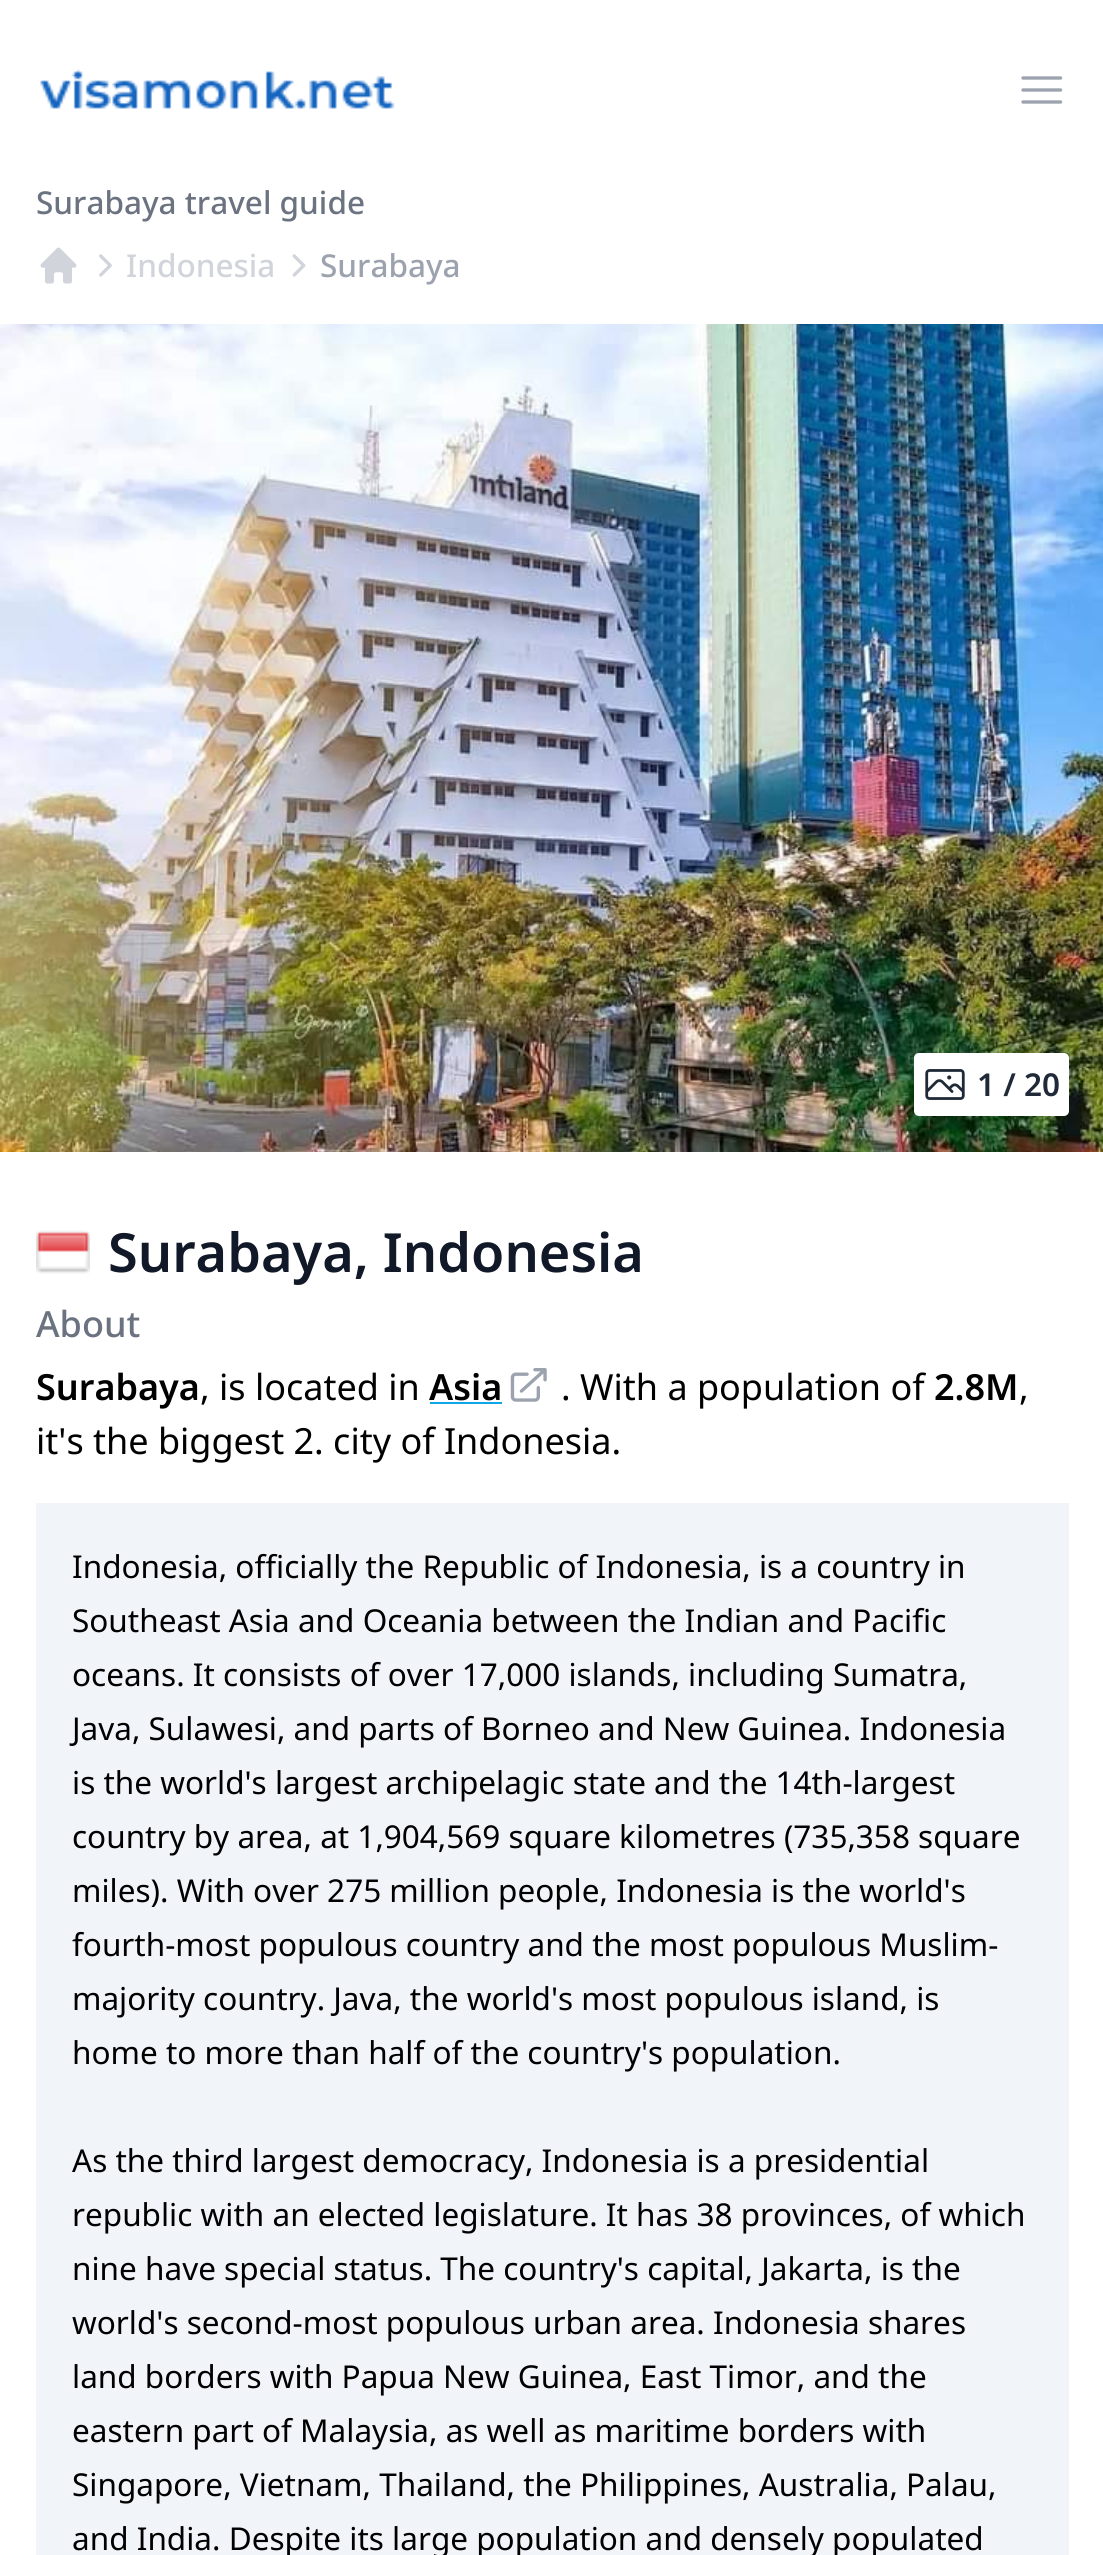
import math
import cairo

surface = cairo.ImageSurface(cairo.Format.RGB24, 1103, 2555)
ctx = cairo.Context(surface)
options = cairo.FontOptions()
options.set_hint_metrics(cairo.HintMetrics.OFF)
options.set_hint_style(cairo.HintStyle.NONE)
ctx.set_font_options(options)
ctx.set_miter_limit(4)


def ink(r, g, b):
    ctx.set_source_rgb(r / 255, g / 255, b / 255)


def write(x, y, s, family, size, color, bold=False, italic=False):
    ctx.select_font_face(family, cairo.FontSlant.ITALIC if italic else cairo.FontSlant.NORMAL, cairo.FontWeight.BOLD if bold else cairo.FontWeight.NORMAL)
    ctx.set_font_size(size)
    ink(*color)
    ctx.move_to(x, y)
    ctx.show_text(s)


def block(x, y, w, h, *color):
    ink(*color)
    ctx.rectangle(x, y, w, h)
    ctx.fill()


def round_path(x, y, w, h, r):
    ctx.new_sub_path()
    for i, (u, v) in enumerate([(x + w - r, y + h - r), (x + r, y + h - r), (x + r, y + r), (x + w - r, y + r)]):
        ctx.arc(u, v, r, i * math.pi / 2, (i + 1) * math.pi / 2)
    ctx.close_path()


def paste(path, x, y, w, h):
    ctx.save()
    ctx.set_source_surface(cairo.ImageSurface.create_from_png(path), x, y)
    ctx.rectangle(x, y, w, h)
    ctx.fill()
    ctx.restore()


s1 = dict(family="Noto Sans Medium", size=31.5, color=(107, 114, 128))
s2 = dict(family="Noto Sans Medium", size=31.5, color=(209, 213, 219))
s3 = dict(family="Noto Sans Medium", size=31.5, color=(156, 163, 175))
s4 = dict(family="Noto Sans SemiBold", size=31.5, color=(31, 41, 55))
s5 = dict(family="Noto Sans SemiBold", size=54, color=(17, 24, 39))
s6 = dict(family="Noto Sans Medium", size=36, color=(107, 114, 128))
s7 = dict(family="Noto Sans SemiBold", size=36, color=(0, 0, 0))
s8 = dict(family="Noto Sans", size=36, color=(0, 0, 0))
s9 = dict(family="Noto Sans", size=31.5, color=(0, 0, 0))

ink(255, 255, 255)
ctx.paint()
paste("pic1.png", 40, 69, 355, 40)
ctx.new_path()
ctx.move_to(1023, 78)
ctx.line_to(1060.5, 78)
ctx.move_to(1023, 90)
ctx.line_to(1060.5, 90)
ctx.move_to(1023, 102)
ctx.line_to(1060.5, 102)
ink(156, 163, 175)
ctx.set_line_width(3.4)
ctx.set_line_cap(cairo.LineCap.ROUND)
ctx.set_line_join(cairo.LineJoin.ROUND)
ctx.stroke()
write(36, 214, "Surabaya travel guide", **s1)
paste("pic2.png", 40, 247, 37, 37)
paste("pic3.png", 99, 254, 13, 23)
write(126, 277, "Indonesia", **s2)
paste("pic4.png", 292, 254, 14, 23)
write(320, 277, "Surabaya", **s3)
paste("pic5.png", 0, 324, 1103, 828)
ink(255, 255, 255)
round_path(914, 1053, 155, 63, 5)
ctx.fill()
paste("pic6.png", 925, 1069, 40, 31)
write(977, 1096, "1 / 20", **s4)
paste("pic7.png", 36, 1230, 54, 44)
write(108, 1272, "Surabaya, Indonesia", **s5)
write(36, 1337, "About", **s6)
write(36, 1400, "Surabaya", **s7)
write(200, 1400, ", is located in", **s8)
write(429, 1400, "Asia", **s7)
block(430, 1402, 72, 2, 14, 165, 233)
paste("pic8.png", 510, 1368, 37, 34)
write(561, 1400, ". With a population of", **s8)
write(934, 1400, "2.8M", **s7)
write(1019, 1400, ",", **s8)
write(36, 1454, "it's the biggest 2. city of Indonesia.", **s8)
block(36, 1503, 1033, 1052, 241, 245, 249)
write(72, 1578, "Indonesia, officially the Republic of Indonesia, is a country in", **s9)
write(72, 1632, "Southeast Asia and Oceania between the Indian and Pacific", **s9)
write(72, 1686, "oceans. It consists of over 17,000 islands, including Sumatra,", **s9)
write(72, 1740, "Java, Sulawesi, and parts of Borneo and New Guinea. Indonesia", **s9)
write(72, 1794, "is the world's largest archipelagic state and the 14th-largest", **s9)
write(72, 1848, "country by area, at 1,904,569 square kilometres (735,358 square", **s9)
write(72, 1902, "miles). With over 275 million people, Indonesia is the world's", **s9)
write(72, 1956, "fourth-most populous country and the most populous Muslim-", **s9)
write(72, 2010, "majority country. Java, the world's most populous island, is", **s9)
write(72, 2064, "home to more than half of the country's population.", **s9)
write(72, 2172, "As the third largest democracy, Indonesia is a presidential", **s9)
write(72, 2226, "republic with an elected legislature. It has 38 provinces, of which", **s9)
write(72, 2280, "nine have special status. The country's capital, Jakarta, is the", **s9)
write(72, 2334, "world's second-most populous urban area. Indonesia shares", **s9)
write(72, 2388, "land borders with Papua New Guinea, East Timor, and the", **s9)
write(72, 2442, "eastern part of Malaysia, as well as maritime borders with", **s9)
write(72, 2496, "Singapore, Vietnam, Thailand, the Philippines, Australia, Palau,", **s9)
write(72, 2550, "and India. Despite its large population and densely populated", **s9)
surface.write_to_png("screenshot.png")
